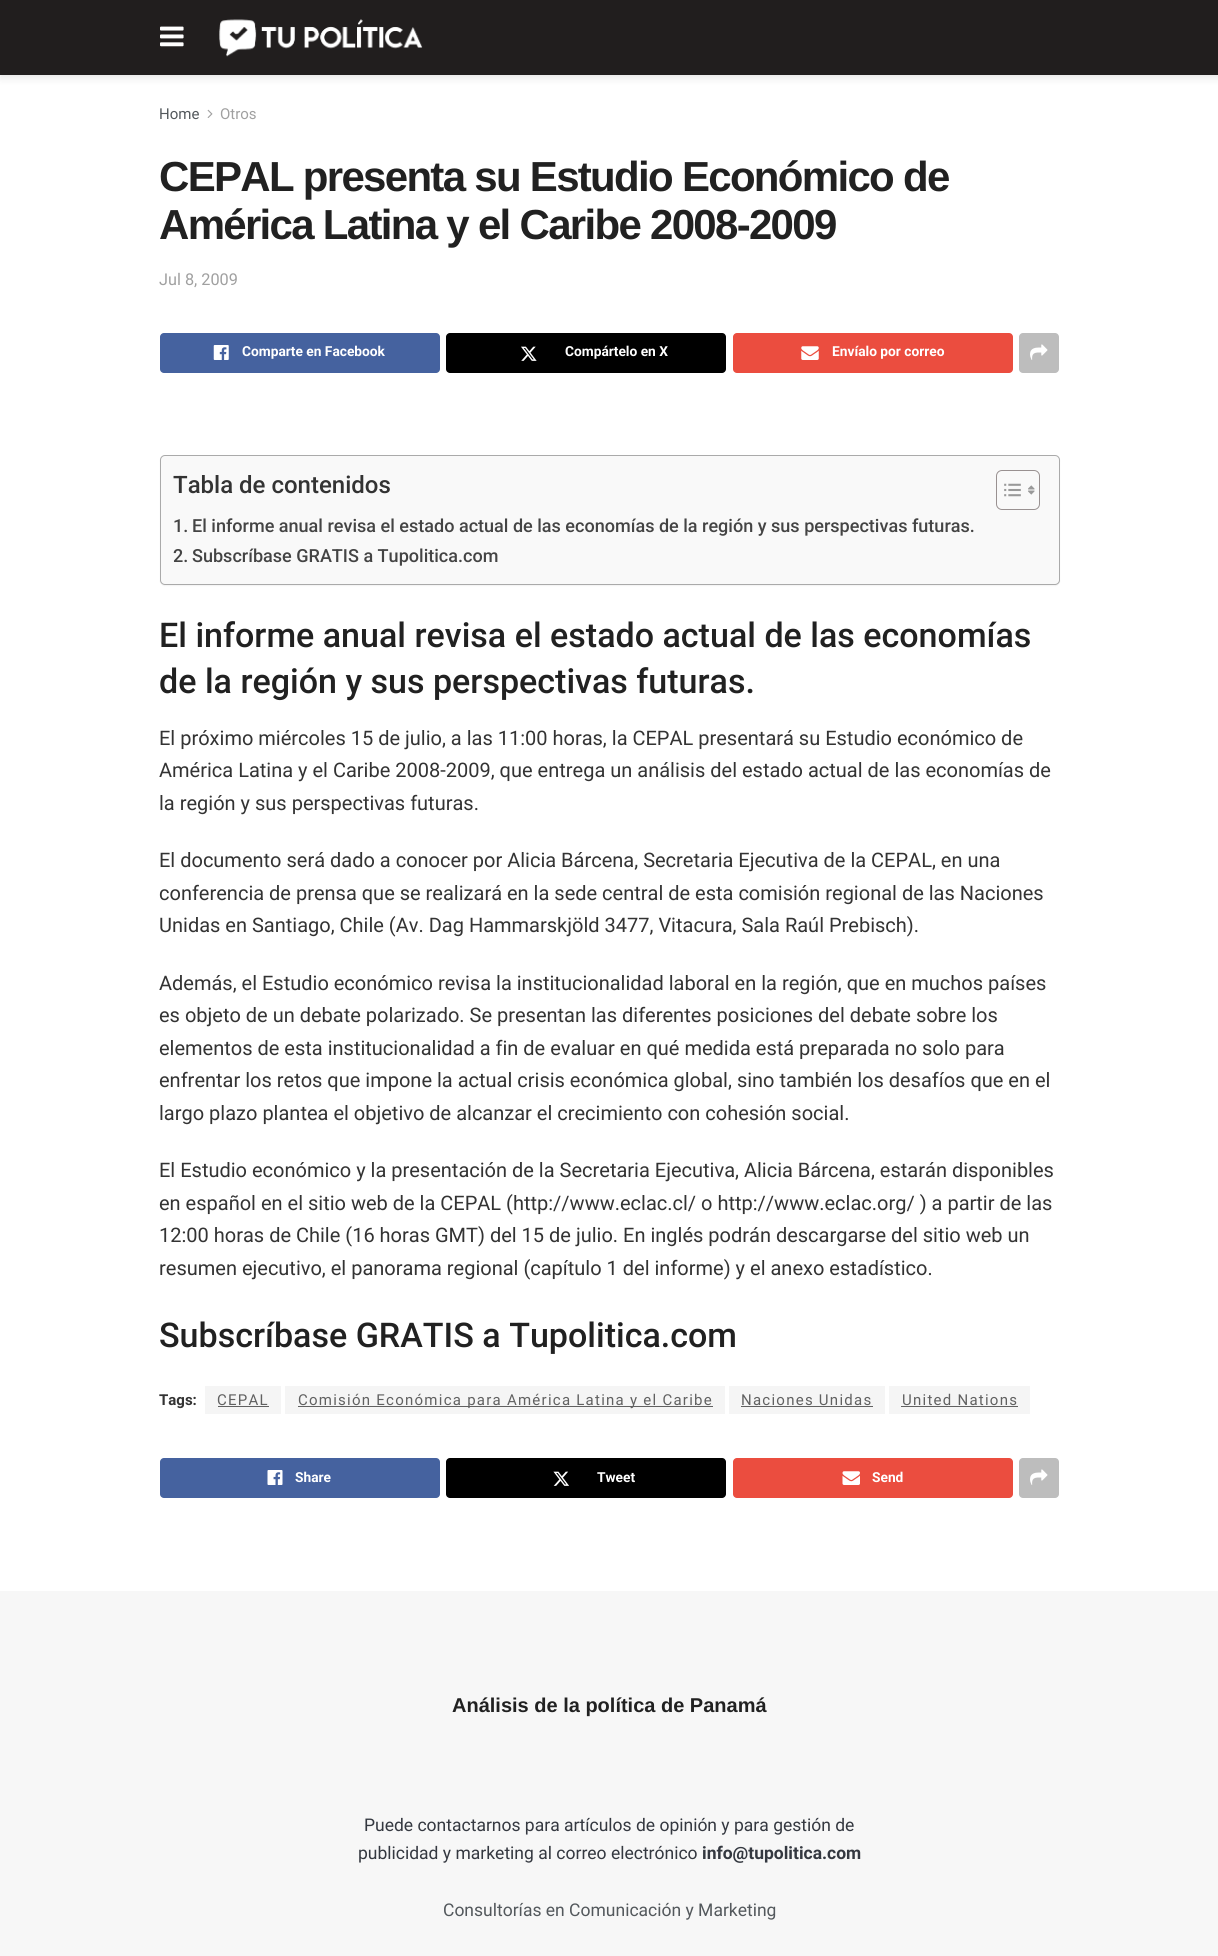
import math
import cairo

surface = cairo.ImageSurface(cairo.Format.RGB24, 1218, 1956)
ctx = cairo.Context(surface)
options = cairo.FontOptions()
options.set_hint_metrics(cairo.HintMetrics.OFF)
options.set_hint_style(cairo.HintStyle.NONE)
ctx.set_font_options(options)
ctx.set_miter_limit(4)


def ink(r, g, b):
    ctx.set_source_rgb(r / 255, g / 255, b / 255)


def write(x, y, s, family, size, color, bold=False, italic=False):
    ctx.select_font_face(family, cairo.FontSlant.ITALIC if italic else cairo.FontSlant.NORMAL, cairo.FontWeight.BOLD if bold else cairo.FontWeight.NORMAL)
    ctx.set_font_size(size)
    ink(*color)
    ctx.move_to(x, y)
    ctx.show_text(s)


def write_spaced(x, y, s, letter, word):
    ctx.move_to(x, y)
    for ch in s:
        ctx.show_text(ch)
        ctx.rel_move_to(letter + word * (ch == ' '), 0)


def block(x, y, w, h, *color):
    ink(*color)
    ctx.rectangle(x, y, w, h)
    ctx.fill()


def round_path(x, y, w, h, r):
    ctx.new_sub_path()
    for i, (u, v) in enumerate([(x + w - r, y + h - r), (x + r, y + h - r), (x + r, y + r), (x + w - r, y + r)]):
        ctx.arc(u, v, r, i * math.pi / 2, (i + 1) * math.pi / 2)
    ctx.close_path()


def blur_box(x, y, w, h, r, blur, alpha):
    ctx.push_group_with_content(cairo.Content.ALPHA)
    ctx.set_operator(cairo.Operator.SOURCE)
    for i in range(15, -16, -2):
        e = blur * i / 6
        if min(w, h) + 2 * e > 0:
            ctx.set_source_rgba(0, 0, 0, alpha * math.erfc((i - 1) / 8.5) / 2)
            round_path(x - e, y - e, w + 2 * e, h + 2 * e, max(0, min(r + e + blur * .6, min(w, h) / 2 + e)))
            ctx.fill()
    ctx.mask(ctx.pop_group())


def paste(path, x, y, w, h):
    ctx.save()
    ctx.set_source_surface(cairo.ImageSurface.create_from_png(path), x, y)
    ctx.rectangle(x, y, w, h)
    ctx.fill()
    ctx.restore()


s1 = dict(family="Roboto", size=15, color=(83, 88, 92))
s2 = dict(family="Roboto", size=15, color=(160, 160, 160))
s3 = dict(family="Roboto", size=16.25, color=(160, 160, 160))
s4 = dict(family="Roboto", size=13.75, color=(255, 255, 255), bold=True)
s5 = dict(family="Roboto Medium", size=24, color=(51, 51, 51))
s6 = dict(family="Roboto Medium", size=18.05, color=(68, 68, 68))
s7 = dict(family="Roboto Medium", size=34.05, color=(33, 33, 33))
s8 = dict(family="Roboto", size=20, color=(51, 51, 51))
s9 = dict(family="Roboto", size=15, color=(51, 51, 51), bold=True)
s10 = dict(family="Liberation Sans", size=20, color=(33, 33, 33), bold=True)
s11 = dict(family="Roboto", size=17.5, color=(52, 56, 64))
s12 = dict(family="Roboto", size=17.5, color=(52, 56, 64), bold=True)
s13 = dict(family="Roboto", size=17.5, color=(83, 88, 92))

ink(255, 255, 255)
ctx.paint()
ink(0, 0, 0)
blur_box(0, 3, 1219, 75, 0, 4, 0.1)
block(0, 0, 1218, 75, 33, 30, 30)
paste("pic1.png", 160, 26, 24, 21)
paste("pic2.png", 219, 19, 204, 38)
write(159, 119, "Home", **s1)
paste("pic3.png", 207, 109, 6, 9)
write(220, 119, "Otros", **s2)
ctx.select_font_face("Liberation Sans", cairo.FontSlant.NORMAL, cairo.FontWeight.BOLD)
ctx.set_font_size(42)
ink(33, 33, 33)
write_spaced(159, 191, "CEPAL presenta su Estudio Económico de", -1.7, 0)
write_spaced(159, 239, "América Latina y el Caribe 2008-2009", -1.7, 0)
write(159, 285, "Jul 8, 2009", **s3)
ink(69, 98, 159)
round_path(160, 333, 280, 40, 4)
ctx.fill()
paste("pic4.png", 213, 345, 16, 15)
write(242, 356, "Comparte en Facebook", **s4)
ink(0, 0, 0)
round_path(446, 333, 280, 40, 4)
ctx.fill()
paste("pic5.png", 521, 346, 16, 15)
write(565, 356, "Compártelo en X", **s4)
ink(235, 77, 63)
round_path(733, 333, 280, 40, 4)
ctx.fill()
paste("pic6.png", 801, 346, 18, 14)
write(832, 356, "Envíalo por correo", **s4)
ink(189, 189, 189)
round_path(1019, 333, 40, 40, 4)
ctx.fill()
paste("pic7.png", 1030, 344, 18, 16)
ink(0, 0, 0)
blur_box(160, 456, 900, 130, 5, 0.5, 0.05)
ink(249, 249, 249)
round_path(160.5, 455.5, 899, 129, 4.5)
ctx.fill_preserve()
ink(170, 170, 170)
ctx.set_line_width(1)
ctx.stroke()
write(173, 493, "Tabla de contenidos", **s5)
round_path(996.5, 470.5, 43, 39, 5.5)
ink(153, 145, 145)
ctx.stroke()
paste("pic8.png", 1004, 483, 17, 14)
paste("pic9.png", 1028, 485, 7, 10)
write(173, 532, "1.", **s6)
write(192, 532, "El informe anual revisa el estado actual de las economías de la región y sus perspectivas futuras.", **s6)
write(173, 562, "2.", **s6)
write(192, 562, "Subscríbase GRATIS a Tupolitica.com", **s6)
write(159, 647, "El informe anual revisa el estado actual de las economías", **s7)
write(159, 693, "de la región y sus perspectivas futuras.", **s7)
write(159, 745, "El próximo miércoles 15 de julio, a las 11:00 horas, la CEPAL presentará su Estudio económico de", **s8)
write(159, 777, "América Latina y el Caribe 2008-2009, que entrega un análisis del estado actual de las economías de", **s8)
write(159, 810, "la región y sus perspectivas futuras.", **s8)
write(159, 867, "El documento será dado a conocer por Alicia Bárcena, Secretaria Ejecutiva de la CEPAL, en una", **s8)
write(159, 900, "conferencia de prensa que se realizará en la sede central de esta comisión regional de las Naciones", **s8)
write(159, 932, "Unidas en Santiago, Chile (Av. Dag Hammarskjöld 3477, Vitacura, Sala Raúl Prebisch).", **s8)
write(159, 990, "Además, el Estudio económico revisa la institucionalidad laboral en la región, que en muchos países", **s8)
write(159, 1022, "es objeto de un debate polarizado. Se presentan las diferentes posiciones del debate sobre los", **s8)
write(159, 1055, "elementos de esta institucionalidad a fin de evaluar en qué medida está preparada no solo para", **s8)
write(159, 1087, "enfrentar los retos que impone la actual crisis económica global, sino también los desafíos que en el", **s8)
write(159, 1120, "largo plazo plantea el objetivo de alcanzar el crecimiento con cohesión social.", **s8)
write(159, 1177, "El Estudio económico y la presentación de la Secretaria Ejecutiva, Alicia Bárcena, estarán disponibles", **s8)
write(159, 1210, "en español en el sitio web de la CEPAL (http://www.eclac.cl/ o http://www.eclac.org/ ) a partir de las", **s8)
write(159, 1242, "12:00 horas de Chile (16 horas GMT) del 15 de julio. En inglés podrán descargarse del sitio web un", **s8)
write(159, 1275, "resumen ejecutivo, el panorama regional (capítulo 1 del informe) y el anexo estadístico.", **s8)
write(159, 1347, "Subscríbase GRATIS a Tupolitica.com", **s7)
write(159, 1405, "Tags:", **s9)
block(205, 1386, 76, 28, 245, 245, 245)
ctx.select_font_face("Roboto")
ink(97, 97, 97)
write_spaced(217, 1405, "CEPAL", 1.25, 0)
block(218, 1406, 51, 1, 97, 97, 97)
block(285, 1386, 440, 28, 245, 245, 245)
block(298, 1406, 415, 1, 97, 97, 97)
write_spaced(298, 1405, "Comisión Económica para América Latina y el Caribe", 1.25, 0)
block(729, 1386, 156, 28, 245, 245, 245)
ink(97, 97, 97)
write_spaced(741, 1405, "Naciones Unidas", 1.25, 0)
block(741, 1406, 132, 1, 97, 97, 97)
block(889, 1386, 141, 28, 245, 245, 245)
ink(97, 97, 97)
write_spaced(902, 1405, "United Nations", 1.25, 0)
block(901, 1406, 117, 1, 97, 97, 97)
ink(69, 98, 159)
round_path(160, 1458, 280, 40, 4)
ctx.fill()
paste("pic10.png", 267, 1470, 16, 15)
write(295, 1482, "Share", **s4)
ink(0, 0, 0)
round_path(446, 1458, 280, 40, 4)
ctx.fill()
paste("pic11.png", 553, 1471, 16, 15)
write(597, 1482, "Tweet", **s4)
ink(235, 77, 63)
round_path(733, 1458, 280, 40, 4)
ctx.fill()
paste("pic12.png", 842, 1471, 18, 14)
write(872, 1482, "Send", **s4)
ink(189, 189, 189)
round_path(1019, 1458, 40, 40, 4)
ctx.fill()
paste("pic7.png", 1030, 1469, 18, 16)
block(0, 1591, 1218, 365, 247, 247, 247)
write(452, 1712, "Análisis de la política de Panamá", **s10)
write(364, 1831, "Puede contactarnos para artículos de opinión y para gestión de", **s11)
write(358, 1859, "publicidad y marketing al correo electrónico", **s11)
write(702, 1859, "info@tupolitica.com", **s12)
write(443, 1916, "Consultorías en Comunicación y Marketing", **s13)
surface.write_to_png("screenshot.png")
